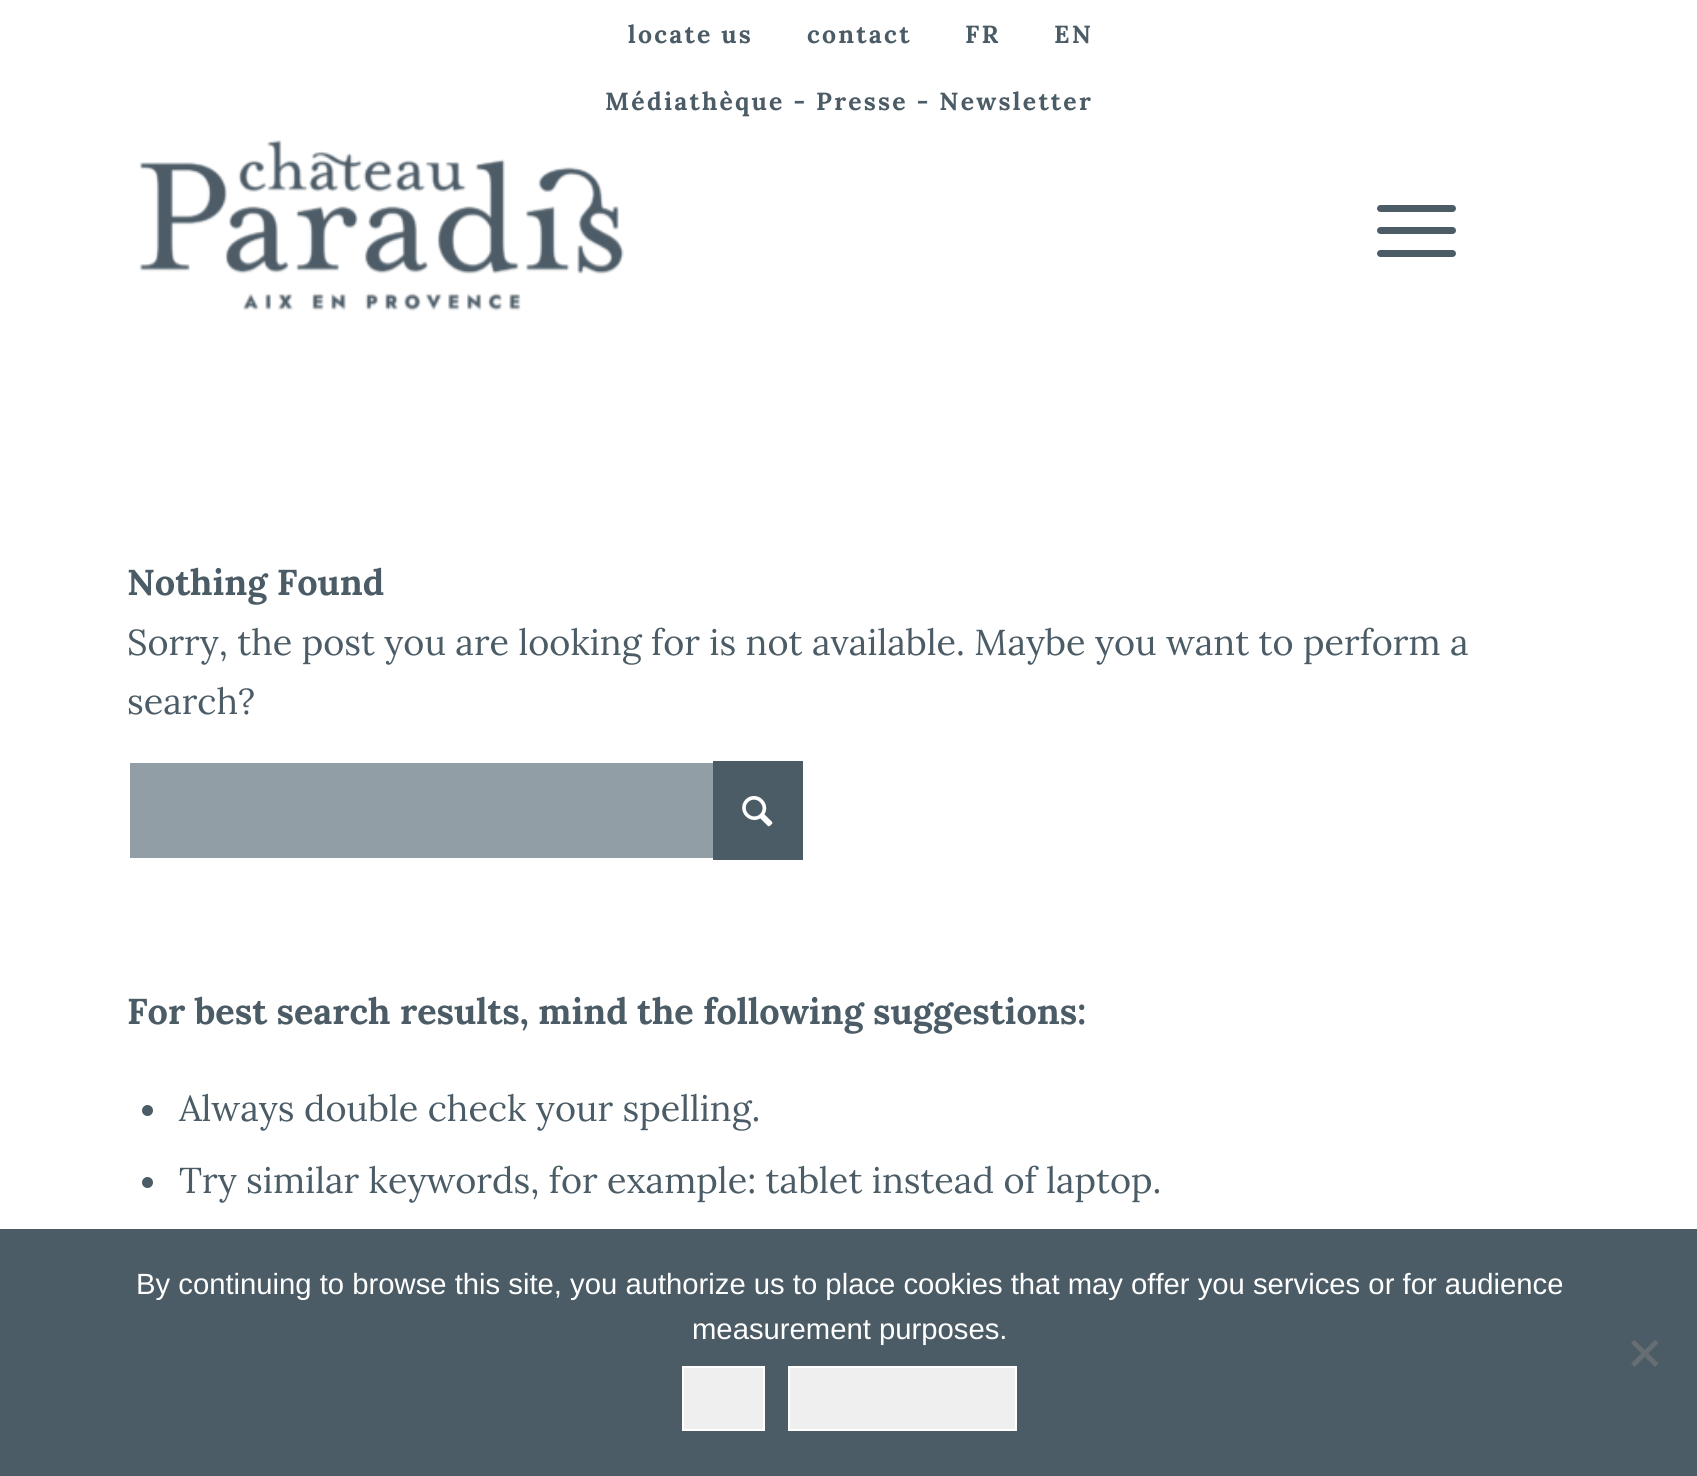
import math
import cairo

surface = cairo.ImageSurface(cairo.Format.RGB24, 1697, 1476)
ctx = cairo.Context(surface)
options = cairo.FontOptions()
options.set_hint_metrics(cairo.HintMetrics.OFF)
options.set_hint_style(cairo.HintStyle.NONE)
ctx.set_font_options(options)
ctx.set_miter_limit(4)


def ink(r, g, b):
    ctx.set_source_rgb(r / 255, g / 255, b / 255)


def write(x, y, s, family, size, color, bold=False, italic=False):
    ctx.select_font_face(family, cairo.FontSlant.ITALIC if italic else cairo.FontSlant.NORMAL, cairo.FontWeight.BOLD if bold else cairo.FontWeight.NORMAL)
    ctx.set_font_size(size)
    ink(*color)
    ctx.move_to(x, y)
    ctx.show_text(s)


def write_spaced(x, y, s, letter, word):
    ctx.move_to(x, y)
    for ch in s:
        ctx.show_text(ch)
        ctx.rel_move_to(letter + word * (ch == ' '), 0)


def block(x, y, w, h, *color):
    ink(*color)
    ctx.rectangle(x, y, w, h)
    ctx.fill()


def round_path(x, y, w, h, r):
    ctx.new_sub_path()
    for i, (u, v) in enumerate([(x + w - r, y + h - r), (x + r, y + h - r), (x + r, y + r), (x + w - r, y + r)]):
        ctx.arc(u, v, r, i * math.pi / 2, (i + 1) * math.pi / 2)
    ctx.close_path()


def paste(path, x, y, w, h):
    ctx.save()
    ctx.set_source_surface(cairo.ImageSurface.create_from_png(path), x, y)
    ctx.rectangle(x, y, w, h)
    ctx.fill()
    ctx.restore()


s1 = dict(family="Lora", size=36, color=(75, 92, 102), bold=True)
s2 = dict(family="Lora", size=36, color=(75, 92, 102))
s3 = dict(family="Liberation Sans", size=29.25, color=(255, 255, 255))

ink(255, 255, 255)
ctx.paint()
ctx.select_font_face("Lora", cairo.FontSlant.NORMAL, cairo.FontWeight.BOLD)
ctx.set_font_size(24.75)
ink(75, 92, 102)
write_spaced(628, 43, "locate us", 2.25, 0)
write_spaced(807, 43, "contact", 2.25, 0)
write_spaced(965, 43, "FR", 2.25, 0)
write_spaced(1054, 43, "EN", 2.25, 0)
write_spaced(605, 110, "Médiathèque - Presse - Newsletter", 2.25, 0)
paste("pic1.png", 139, 140, 485, 172)
round_path(1377, 227, 79, 7, 3.5)
ctx.fill()
round_path(1377, 205, 79, 7, 3.5)
ctx.fill()
round_path(1377, 250, 79, 7, 3.5)
ctx.fill()
write(127, 595, "Nothing Found", **s1)
write(127, 655, "Sorry, the post you are looking for is not available. Maybe you want to perform a", **s2)
write(127, 714, "search?", **s2)
block(130, 763, 583, 95, 146, 158, 166)
block(713, 761, 90, 99, 75, 92, 102)
paste("pic2.png", 742, 796, 31, 31)
write(127, 1024, "For best search results, mind the following suggestions:", **s1)
ctx.new_path()
ctx.arc(147.5, 1110.5, 5.5, 0, 2 * math.pi)
ctx.fill()
write(179, 1121, "Always double check your spelling.", **s2)
ctx.new_path()
ctx.arc(147.5, 1182.5, 5.5, 0, 2 * math.pi)
ctx.fill()
write(179, 1193, "Try similar keywords, for example: tablet instead of laptop.", **s2)
block(0, 1229, 1697, 247, 75, 92, 102)
write(136, 1294, "By continuing to browse this site, you authorize us to place cookies that may offer you services or for audience", **s3)
write(692, 1339, "measurement purposes.", **s3)
ink(102, 110, 115)
ctx.new_path()
ctx.move_to(1655, 1340)
ctx.line_to(1658.5, 1343)
ctx.line_to(1634.5, 1367)
ctx.line_to(1631, 1363.5)
ctx.close_path()
ctx.fill()
ctx.new_path()
ctx.move_to(1631, 1343)
ctx.line_to(1634.5, 1340)
ctx.line_to(1658.5, 1363.5)
ctx.line_to(1655, 1367)
ctx.close_path()
ctx.fill()
ink(239, 239, 239)
ctx.rectangle(683, 1367, 81, 63)
ctx.fill_preserve()
ink(255, 255, 255)
ctx.stroke()
ink(239, 239, 239)
ctx.rectangle(789, 1367, 227, 63)
ctx.fill_preserve()
ink(255, 255, 255)
ctx.stroke()
surface.write_to_png("screenshot.png")
